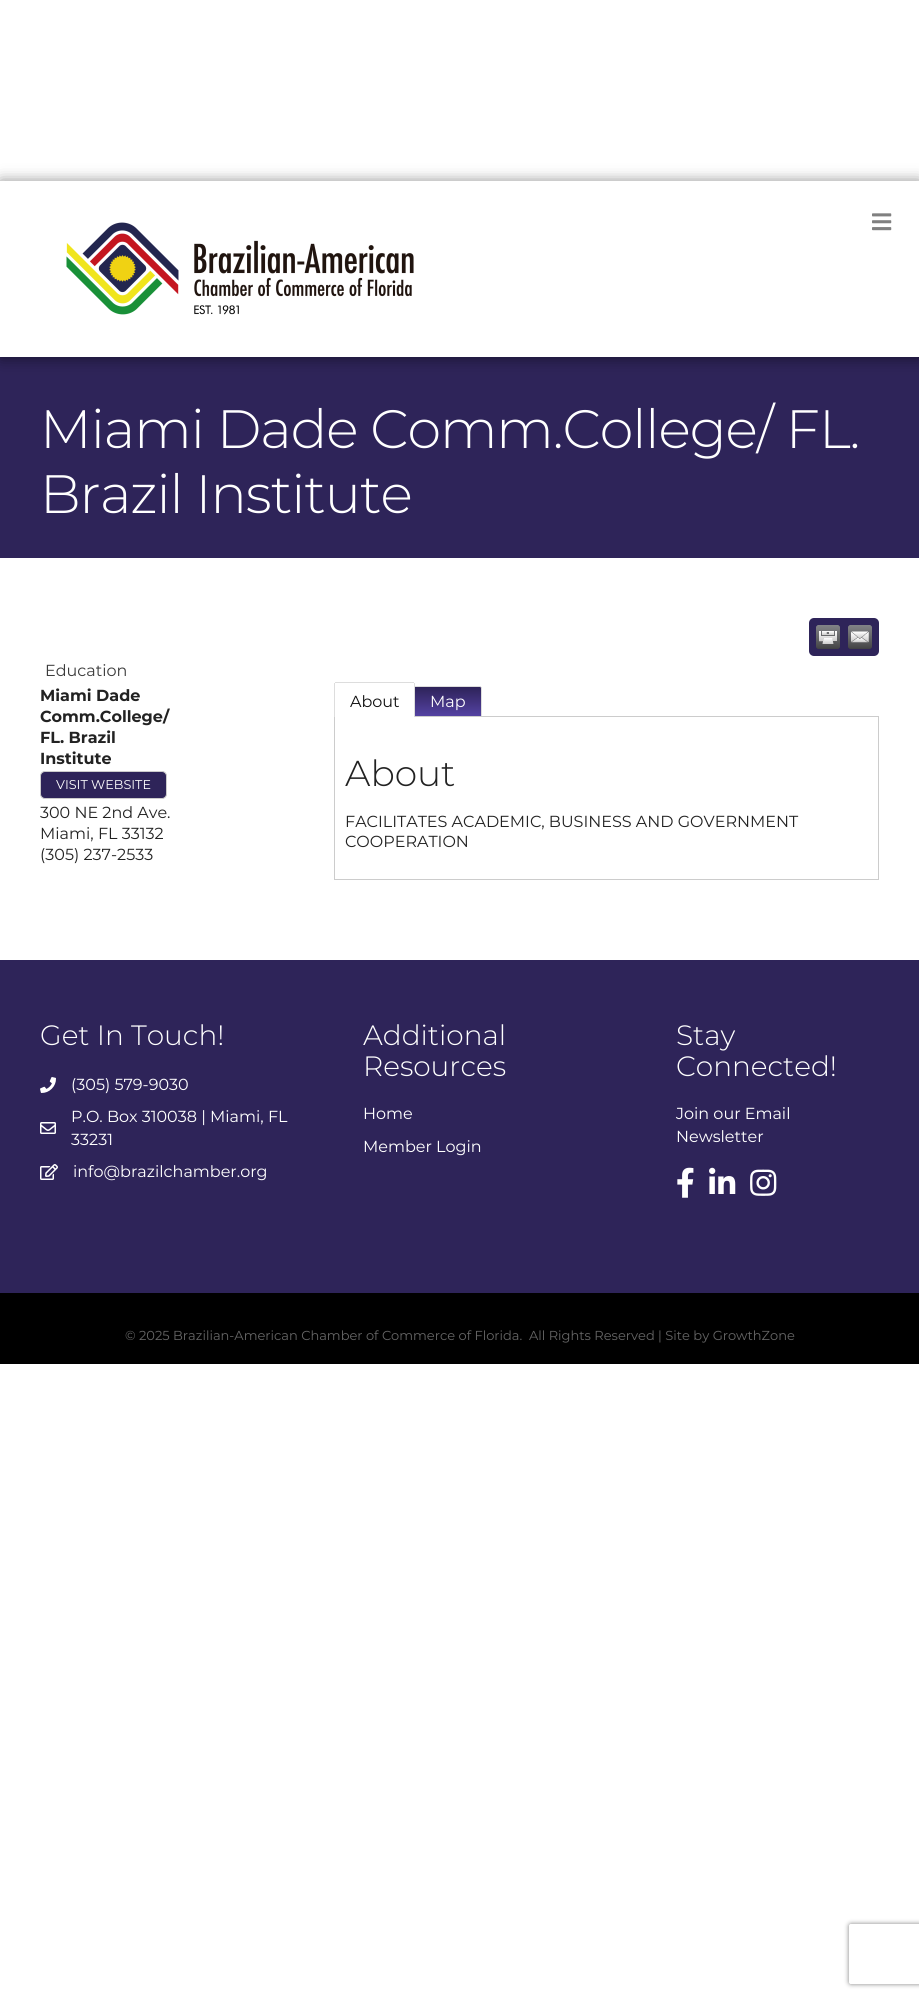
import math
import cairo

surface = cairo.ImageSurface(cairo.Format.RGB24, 919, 1998)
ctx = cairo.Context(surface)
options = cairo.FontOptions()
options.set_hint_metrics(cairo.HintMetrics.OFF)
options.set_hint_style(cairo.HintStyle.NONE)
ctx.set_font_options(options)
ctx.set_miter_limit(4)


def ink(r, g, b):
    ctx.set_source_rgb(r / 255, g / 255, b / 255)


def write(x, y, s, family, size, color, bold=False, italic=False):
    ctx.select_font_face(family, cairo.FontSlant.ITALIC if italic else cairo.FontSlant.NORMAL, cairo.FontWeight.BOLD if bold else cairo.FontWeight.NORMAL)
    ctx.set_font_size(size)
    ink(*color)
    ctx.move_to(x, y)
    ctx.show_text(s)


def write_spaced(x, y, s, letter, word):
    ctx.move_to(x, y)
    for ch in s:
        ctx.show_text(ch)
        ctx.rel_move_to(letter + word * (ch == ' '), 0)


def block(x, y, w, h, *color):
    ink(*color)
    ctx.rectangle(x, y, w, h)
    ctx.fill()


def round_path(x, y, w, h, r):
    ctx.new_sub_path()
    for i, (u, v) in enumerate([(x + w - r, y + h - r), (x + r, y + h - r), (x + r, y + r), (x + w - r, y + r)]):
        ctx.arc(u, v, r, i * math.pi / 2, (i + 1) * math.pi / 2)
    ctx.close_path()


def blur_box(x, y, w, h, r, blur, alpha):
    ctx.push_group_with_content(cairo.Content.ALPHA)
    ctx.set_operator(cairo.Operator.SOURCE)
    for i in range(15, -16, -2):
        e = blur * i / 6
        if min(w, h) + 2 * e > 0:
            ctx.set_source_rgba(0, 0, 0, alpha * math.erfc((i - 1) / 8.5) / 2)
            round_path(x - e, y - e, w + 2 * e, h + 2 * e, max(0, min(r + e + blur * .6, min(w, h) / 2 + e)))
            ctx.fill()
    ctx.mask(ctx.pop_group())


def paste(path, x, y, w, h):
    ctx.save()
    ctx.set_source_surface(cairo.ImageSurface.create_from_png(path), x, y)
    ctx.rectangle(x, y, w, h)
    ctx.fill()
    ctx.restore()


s1 = dict(family="Montserrat", size=16, color=(60, 60, 60))
s2 = dict(family="Montserrat", size=16, color=(34, 34, 34), bold=True)
s3 = dict(family="Montserrat", size=12.75, color=(255, 255, 255))
s4 = dict(family="Montserrat", size=16, color=(34, 34, 34))
s5 = dict(family="Montserrat", size=16, color=(17, 17, 17))
s6 = dict(family="Montserrat", size=16, color=(255, 255, 255))
s7 = dict(family="Montserrat Light", size=36, color=(34, 34, 34))
s8 = dict(family="Montserrat Light", size=28, color=(255, 255, 255))
s9 = dict(family="Montserrat", size=13, color=(102, 102, 102))

ink(255, 255, 255)
ctx.paint()
block(0, 357, 919, 201, 46, 36, 89)
ctx.save()
ctx.set_fill_rule(cairo.FillRule.EVEN_ODD)
ctx.new_path()
ctx.move_to(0, 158)
ctx.line_to(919, 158)
ctx.line_to(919, 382)
ctx.line_to(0, 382)
ctx.close_path()
ctx.move_to(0, 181)
ctx.line_to(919, 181)
ctx.line_to(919, 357)
ctx.line_to(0, 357)
ctx.close_path()
ctx.clip()
ink(0, 0, 0)
blur_box(1, 182, 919, 176, 0, 7.5, 0.5)
ctx.restore()
paste("pic1.png", 66, 222, 348, 93)
paste("pic2.png", 872, 213, 20, 18)
ctx.select_font_face("Montserrat Light")
ctx.set_font_size(54)
ink(255, 255, 255)
write_spaced(40, 448, "Miami Dade Comm.College/ FL.", -1, 0)
write_spaced(40, 513, "Brazil Institute", -1, 0)
ink(46, 36, 89)
round_path(809, 618, 70, 38, 5)
ctx.fill()
paste("pic3.png", 816, 625, 24, 24)
paste("pic4.png", 848, 625, 24, 24)
write(45, 676, "Education", **s1)
write(40, 701, "Miami Dade", **s2)
write(40, 722, "Comm.College/", **s2)
write(40, 743, "FL. Brazil", **s2)
write(40, 764, "Institute", **s2)
ink(46, 36, 89)
round_path(40.5, 771.5, 126, 27, 4.5)
ctx.fill_preserve()
ink(204, 204, 204)
ctx.set_line_width(1)
ctx.stroke()
write(56, 789, "VISIT WEBSITE", **s3)
write(40, 818, "300 NE 2nd Ave.", **s4)
write(40, 839, "Miami, FL 33132", **s4)
write(40, 860, "(305) 237-2533", **s4)
ctx.rectangle(334.5, 716.5, 544, 163)
ink(204, 204, 204)
ctx.stroke()
ink(255, 255, 255)
ctx.new_path()
ctx.move_to(336, 683)
ctx.line_to(413, 683)
ctx.curve_to(413.5, 683, 414, 683.5, 414, 684)
ctx.line_to(414, 717)
ctx.line_to(335, 717)
ctx.line_to(335, 684)
ctx.curve_to(335, 683.5, 335.5, 683, 336, 683)
ctx.close_path()
ctx.fill()
block(335, 682, 79, 1, 221, 221, 221)
block(414, 683, 1, 34, 221, 221, 221)
block(334, 683, 1, 34, 221, 221, 221)
write(350, 707, "About", **s5)
gradient = cairo.LinearGradient(448, 687, 448, 716)
gradient.add_color_stop_rgba(0, 0.18, 0.141, 0.349, 1)
gradient.add_color_stop_rgba(1, 0.329, 0.255, 0.635, 1)
ctx.set_source(gradient)
ctx.new_path()
ctx.move_to(415, 687)
ctx.line_to(480, 687)
ctx.curve_to(480.5, 687, 481, 687.5, 481, 688)
ctx.line_to(481, 716)
ctx.line_to(415, 716)
ctx.close_path()
ctx.fill()
block(415, 686, 66, 1, 221, 221, 221)
block(481, 687, 1, 29, 221, 221, 221)
write(430, 707, "Map", **s6)
write(345, 786, "About", **s7)
write(345, 827, "FACILITATES ACADEMIC, BUSINESS AND GOVERNMENT", **s4)
write(345, 847, "COOPERATION", **s4)
block(0, 960, 919, 333, 46, 36, 89)
write(40, 1045, "Get In Touch!", **s8)
paste("pic5.png", 40, 1077, 16, 16)
write(71, 1090, "(305) 579-9030", **s6)
paste("pic6.png", 40, 1122, 16, 12)
write(71, 1122, "P.O. Box 310038 | Miami, FL", **s6)
write(71, 1145, "33231", **s6)
paste("pic7.png", 40, 1164, 18, 16)
write(73, 1177, "info@brazilchamber.org", **s6)
write(363, 1045, "Additional", **s8)
write(363, 1076, "Resources", **s8)
write(363, 1119, "Home", **s6)
write(363, 1152, "Member Login", **s6)
write(676, 1045, "Stay", **s8)
write(676, 1076, "Connected!", **s8)
write(676, 1119, "Join our Email", **s6)
write(676, 1142, "Newsletter", **s6)
paste("pic8.png", 677, 1167, 17, 31)
paste("pic9.png", 709, 1167, 27, 27)
paste("pic10.png", 750, 1169, 27, 27)
block(0, 1293, 919, 71, 0, 0, 0)
write(125, 1340, "© 2025 Brazilian-American Chamber of Commerce of Florida.", **s9)
write(529, 1340, "All Rights Reserved | Site by GrowthZone", **s9)
ctx.save()
ctx.set_fill_rule(cairo.FillRule.EVEN_ODD)
ctx.new_path()
ctx.move_to(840, 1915)
ctx.line_to(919, 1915)
ctx.line_to(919, 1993)
ctx.line_to(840, 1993)
ctx.close_path()
ctx.move_to(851, 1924)
ctx.line_to(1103, 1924)
ctx.curve_to(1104, 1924, 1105, 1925, 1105, 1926)
ctx.line_to(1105, 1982)
ctx.curve_to(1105, 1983, 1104, 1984, 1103, 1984)
ctx.line_to(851, 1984)
ctx.curve_to(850, 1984, 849, 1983, 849, 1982)
ctx.line_to(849, 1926)
ctx.curve_to(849, 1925, 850, 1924, 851, 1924)
ctx.close_path()
ctx.clip()
ink(128, 128, 128)
blur_box(849, 1924, 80, 60, 2, 2.5, 1)
ctx.restore()
surface.write_to_png("screenshot.png")
